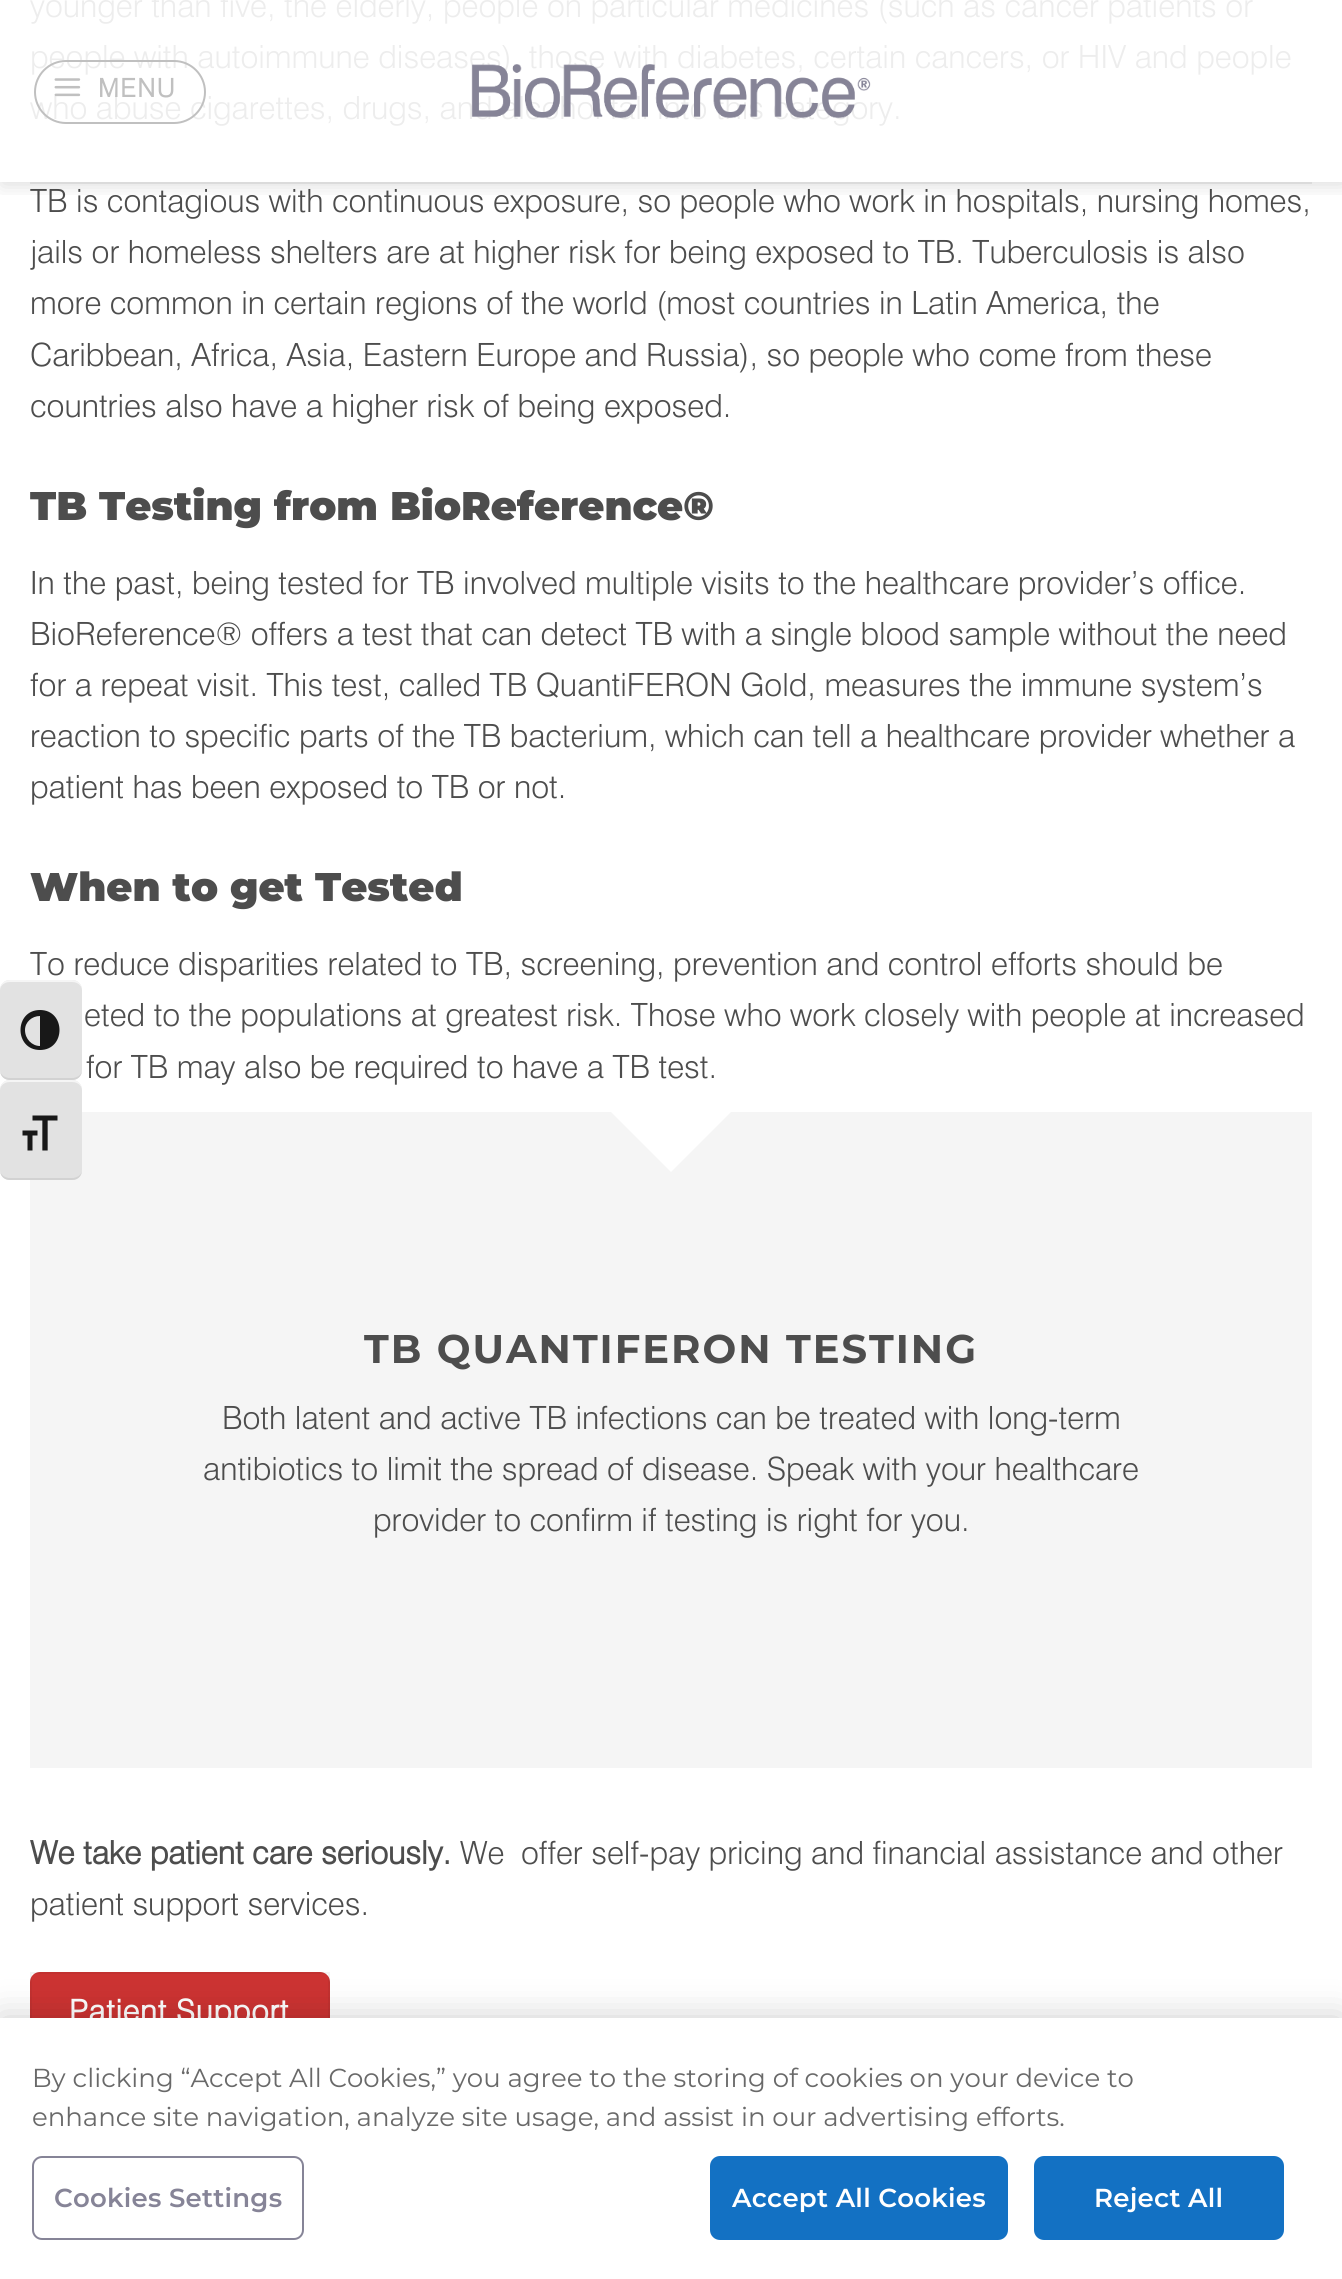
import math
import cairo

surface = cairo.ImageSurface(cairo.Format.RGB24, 1342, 2279)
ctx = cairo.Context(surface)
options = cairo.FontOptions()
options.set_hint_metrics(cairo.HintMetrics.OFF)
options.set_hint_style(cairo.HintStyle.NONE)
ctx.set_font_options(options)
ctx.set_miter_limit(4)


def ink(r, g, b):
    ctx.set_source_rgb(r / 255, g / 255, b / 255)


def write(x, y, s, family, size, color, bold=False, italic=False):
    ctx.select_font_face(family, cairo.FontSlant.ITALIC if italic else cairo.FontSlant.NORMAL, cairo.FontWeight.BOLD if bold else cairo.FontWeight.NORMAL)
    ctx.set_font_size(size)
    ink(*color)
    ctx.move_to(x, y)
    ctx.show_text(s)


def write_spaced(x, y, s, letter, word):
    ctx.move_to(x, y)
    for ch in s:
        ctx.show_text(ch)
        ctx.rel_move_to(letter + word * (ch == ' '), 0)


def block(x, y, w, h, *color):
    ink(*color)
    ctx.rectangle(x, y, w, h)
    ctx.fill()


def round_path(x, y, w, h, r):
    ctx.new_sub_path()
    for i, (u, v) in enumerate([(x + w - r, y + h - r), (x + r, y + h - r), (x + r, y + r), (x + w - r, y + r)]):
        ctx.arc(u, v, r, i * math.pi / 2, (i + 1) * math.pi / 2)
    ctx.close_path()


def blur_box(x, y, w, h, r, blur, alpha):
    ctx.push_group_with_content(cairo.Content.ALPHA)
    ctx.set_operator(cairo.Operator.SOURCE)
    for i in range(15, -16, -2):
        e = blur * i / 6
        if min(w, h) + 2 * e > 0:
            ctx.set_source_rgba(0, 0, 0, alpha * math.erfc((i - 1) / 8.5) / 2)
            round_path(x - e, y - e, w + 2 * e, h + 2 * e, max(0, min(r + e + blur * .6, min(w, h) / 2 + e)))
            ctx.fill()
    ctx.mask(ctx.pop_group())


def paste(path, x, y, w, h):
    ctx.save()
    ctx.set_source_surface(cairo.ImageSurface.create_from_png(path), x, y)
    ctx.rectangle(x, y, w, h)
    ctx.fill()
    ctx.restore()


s1 = dict(family="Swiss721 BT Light", size=32, color=(237, 237, 237))
s2 = dict(family="Swiss721 BT Light", size=32, color=(77, 77, 77))
s3 = dict(family="Montserrat Black", size=40, color=(77, 77, 77))
s4 = dict(family="Swiss721 BT", size=32, color=(77, 77, 77), bold=True)
s5 = dict(family="Montserrat", size=26, color=(105, 105, 105))

ink(255, 255, 255)
ctx.paint()
write(30, 17, "younger than five, the elderly, people on particular medicines (such as cancer patients or", **s1)
write(30, 68, "people with autoimmune diseases), those with diabetes, certain cancers, or HIV and people", **s1)
write(30, 119, "who abuse cigarettes, drugs, and alcohol fall into this category.", **s1)
write(30, 212, "TB is contagious with continuous exposure, so people who work in hospitals, nursing homes,", **s2)
write(30, 263, "jails or homeless shelters are at higher risk for being exposed to TB. Tuberculosis is also", **s2)
write(30, 314, "more common in certain regions of the world (most countries in Latin America, the", **s2)
write(30, 366, "Caribbean, Africa, Asia, Eastern Europe and Russia), so people who come from these", **s2)
write(30, 417, "countries also have a higher risk of being exposed.", **s2)
write(30, 520, "TB Testing from BioReference®", **s3)
write(30, 594, "In the past, being tested for TB involved multiple visits to the healthcare provider’s office.", **s2)
write(30, 645, "BioReference® offers a test that can detect TB with a single blood sample without the need", **s2)
write(30, 696, "for a repeat visit. This test, called TB QuantiFERON Gold, measures the immune system’s", **s2)
write(30, 747, "reaction to specific parts of the TB bacterium, which can tell a healthcare provider whether a", **s2)
write(30, 798, "patient has been exposed to TB or not.", **s2)
write(30, 901, "When to get Tested", **s3)
write(30, 975, "To reduce disparities related to TB, screening, prevention and control efforts should be", **s2)
write(84, 1026, "eted to the populations at greatest risk. Those who work closely with people at increased", **s2)
write(86, 1078, "for TB may also be required to have a TB test.", **s2)
ink(245, 245, 245)
ctx.new_path()
ctx.move_to(30, 1112)
ctx.line_to(30, 1768)
ctx.line_to(1312, 1768)
ctx.line_to(1312, 1112)
ctx.line_to(731, 1112)
ctx.line_to(671, 1172)
ctx.line_to(611, 1112)
ctx.close_path()
ctx.fill()
ctx.select_font_face("Montserrat", cairo.FontSlant.NORMAL, cairo.FontWeight.BOLD)
ctx.set_font_size(40)
ink(77, 77, 77)
write_spaced(364, 1363, "TB QUANTIFERON TESTING", 2, 0)
write(222, 1429, "Both latent and active TB infections can be treated with long-term", **s2)
write(203, 1480, "antibiotics to limit the spread of disease. Speak with your healthcare", **s2)
write(373, 1531, "provider to confirm if testing is right for you.", **s2)
write(30, 1864, "We take patient care seriously.", **s4)
write(460, 1864, "We", **s2)
write(521, 1864, "offer self-pay pricing and financial assistance and other", **s2)
write(30, 1915, "patient support services.", **s2)
ink(204, 51, 50)
round_path(30, 1972, 300, 78, 10)
ctx.fill()
ctx.rectangle(31, 1973, 298, 76)
ctx.set_source_rgba(0, 0, 0, 0.05)
ctx.stroke()
ctx.select_font_face("Swiss721 BT", cairo.FontSlant.NORMAL, cairo.FontWeight.BOLD)
ctx.set_font_size(31)
ink(255, 255, 255)
write_spaced(69, 2022, "Patient Support", 0.9, 0)
ctx.save()
ctx.rectangle(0, 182, 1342, 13)
ctx.clip()
ink(0, 0, 0)
blur_box(2, 2, 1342, 182, 0, 10, 0.15)
ctx.restore()
round_path(35, 61, 170, 62, 31)
ink(192, 192, 192)
ctx.stroke()
paste("pic1.png", 54, 78, 27, 19)
ctx.set_font_size(25.5)
write_spaced(98, 97, "MENU", 1.5, 0)
paste("pic2.png", 471, 64, 400, 55)
block(30, 182, 1282, 2, 219, 219, 219)
ink(226, 226, 226)
round_path(0, 980, 82, 100, 10)
ctx.fill()
ink(245, 245, 245)
ctx.new_path()
ctx.move_to(10, 980)
ctx.curve_to(4, 980, 0, 984, 0, 990)
ctx.curve_to(0, 986, 4, 982, 10, 982)
ctx.line_to(72, 982)
ctx.curve_to(78, 982, 82, 986, 82, 990)
ctx.curve_to(82, 984, 78, 980, 72, 980)
ctx.close_path()
ctx.fill()
ink(210, 210, 210)
ctx.new_path()
ctx.move_to(72, 1080)
ctx.curve_to(78, 1080, 82, 1076, 82, 1070)
ctx.curve_to(82, 1074, 78, 1078, 72, 1078)
ctx.line_to(10, 1078)
ctx.curve_to(4, 1078, 0, 1074, 0, 1070)
ctx.curve_to(0, 1076, 4, 1080, 10, 1080)
ctx.close_path()
ctx.fill()
ink(24, 24, 24)
ctx.new_path()
ctx.move_to(40, 1010)
ctx.curve_to(14, 1010, 14, 1050, 40, 1050)
ctx.curve_to(66, 1050, 66, 1010, 40, 1010)
ctx.close_path()
ctx.move_to(25, 1030)
ctx.curve_to(25, 1022, 32, 1016, 40, 1016)
ctx.line_to(40, 1046)
ctx.curve_to(32, 1046, 25, 1039, 25, 1030)
ctx.close_path()
ctx.fill()
ink(226, 226, 226)
round_path(0, 1080, 82, 100, 10)
ctx.fill()
ink(245, 245, 245)
ctx.new_path()
ctx.move_to(10, 1080)
ctx.curve_to(4, 1080, 0, 1084, 0, 1090)
ctx.curve_to(0, 1086, 4, 1082, 10, 1082)
ctx.line_to(72, 1082)
ctx.curve_to(78, 1082, 82, 1086, 82, 1090)
ctx.curve_to(82, 1084, 78, 1080, 72, 1080)
ctx.close_path()
ctx.fill()
ink(210, 210, 210)
ctx.new_path()
ctx.move_to(72, 1180)
ctx.curve_to(78, 1180, 82, 1176, 82, 1170)
ctx.curve_to(82, 1174, 78, 1178, 72, 1178)
ctx.line_to(10, 1178)
ctx.curve_to(4, 1178, 0, 1174, 0, 1170)
ctx.curve_to(0, 1176, 4, 1180, 10, 1180)
ctx.close_path()
ctx.fill()
paste("pic3.png", 22, 1115, 36, 36)
ink(0, 0, 0)
blur_box(0, 2018, 1342, 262, 0, 18, 0.2)
block(0, 2018, 1342, 261, 255, 255, 255)
write(32, 2087, "By clicking “Accept All Cookies,” you agree to the storing of cookies on your device to", **s5)
write(32, 2126, "enhance site navigation, analyze site usage, and assist in our advertising efforts.", **s5)
round_path(33, 2157, 270, 82, 9)
ink(134, 132, 151)
ctx.stroke()
ctx.select_font_face("Montserrat SemiBold")
write_spaced(54, 2207, "Cookies Settings", 0.25, 0)
ink(19, 113, 195)
round_path(711, 2157, 296, 82, 9)
ctx.fill_preserve()
ctx.stroke()
ink(255, 255, 255)
write_spaced(732, 2207, "Accept All Cookies", 0.25, 0)
ink(19, 113, 195)
round_path(1035, 2157, 248, 82, 9)
ctx.fill_preserve()
ctx.stroke()
ink(255, 255, 255)
write_spaced(1094, 2207, "Reject All", 0.25, 0)
surface.write_to_png("screenshot.png")
